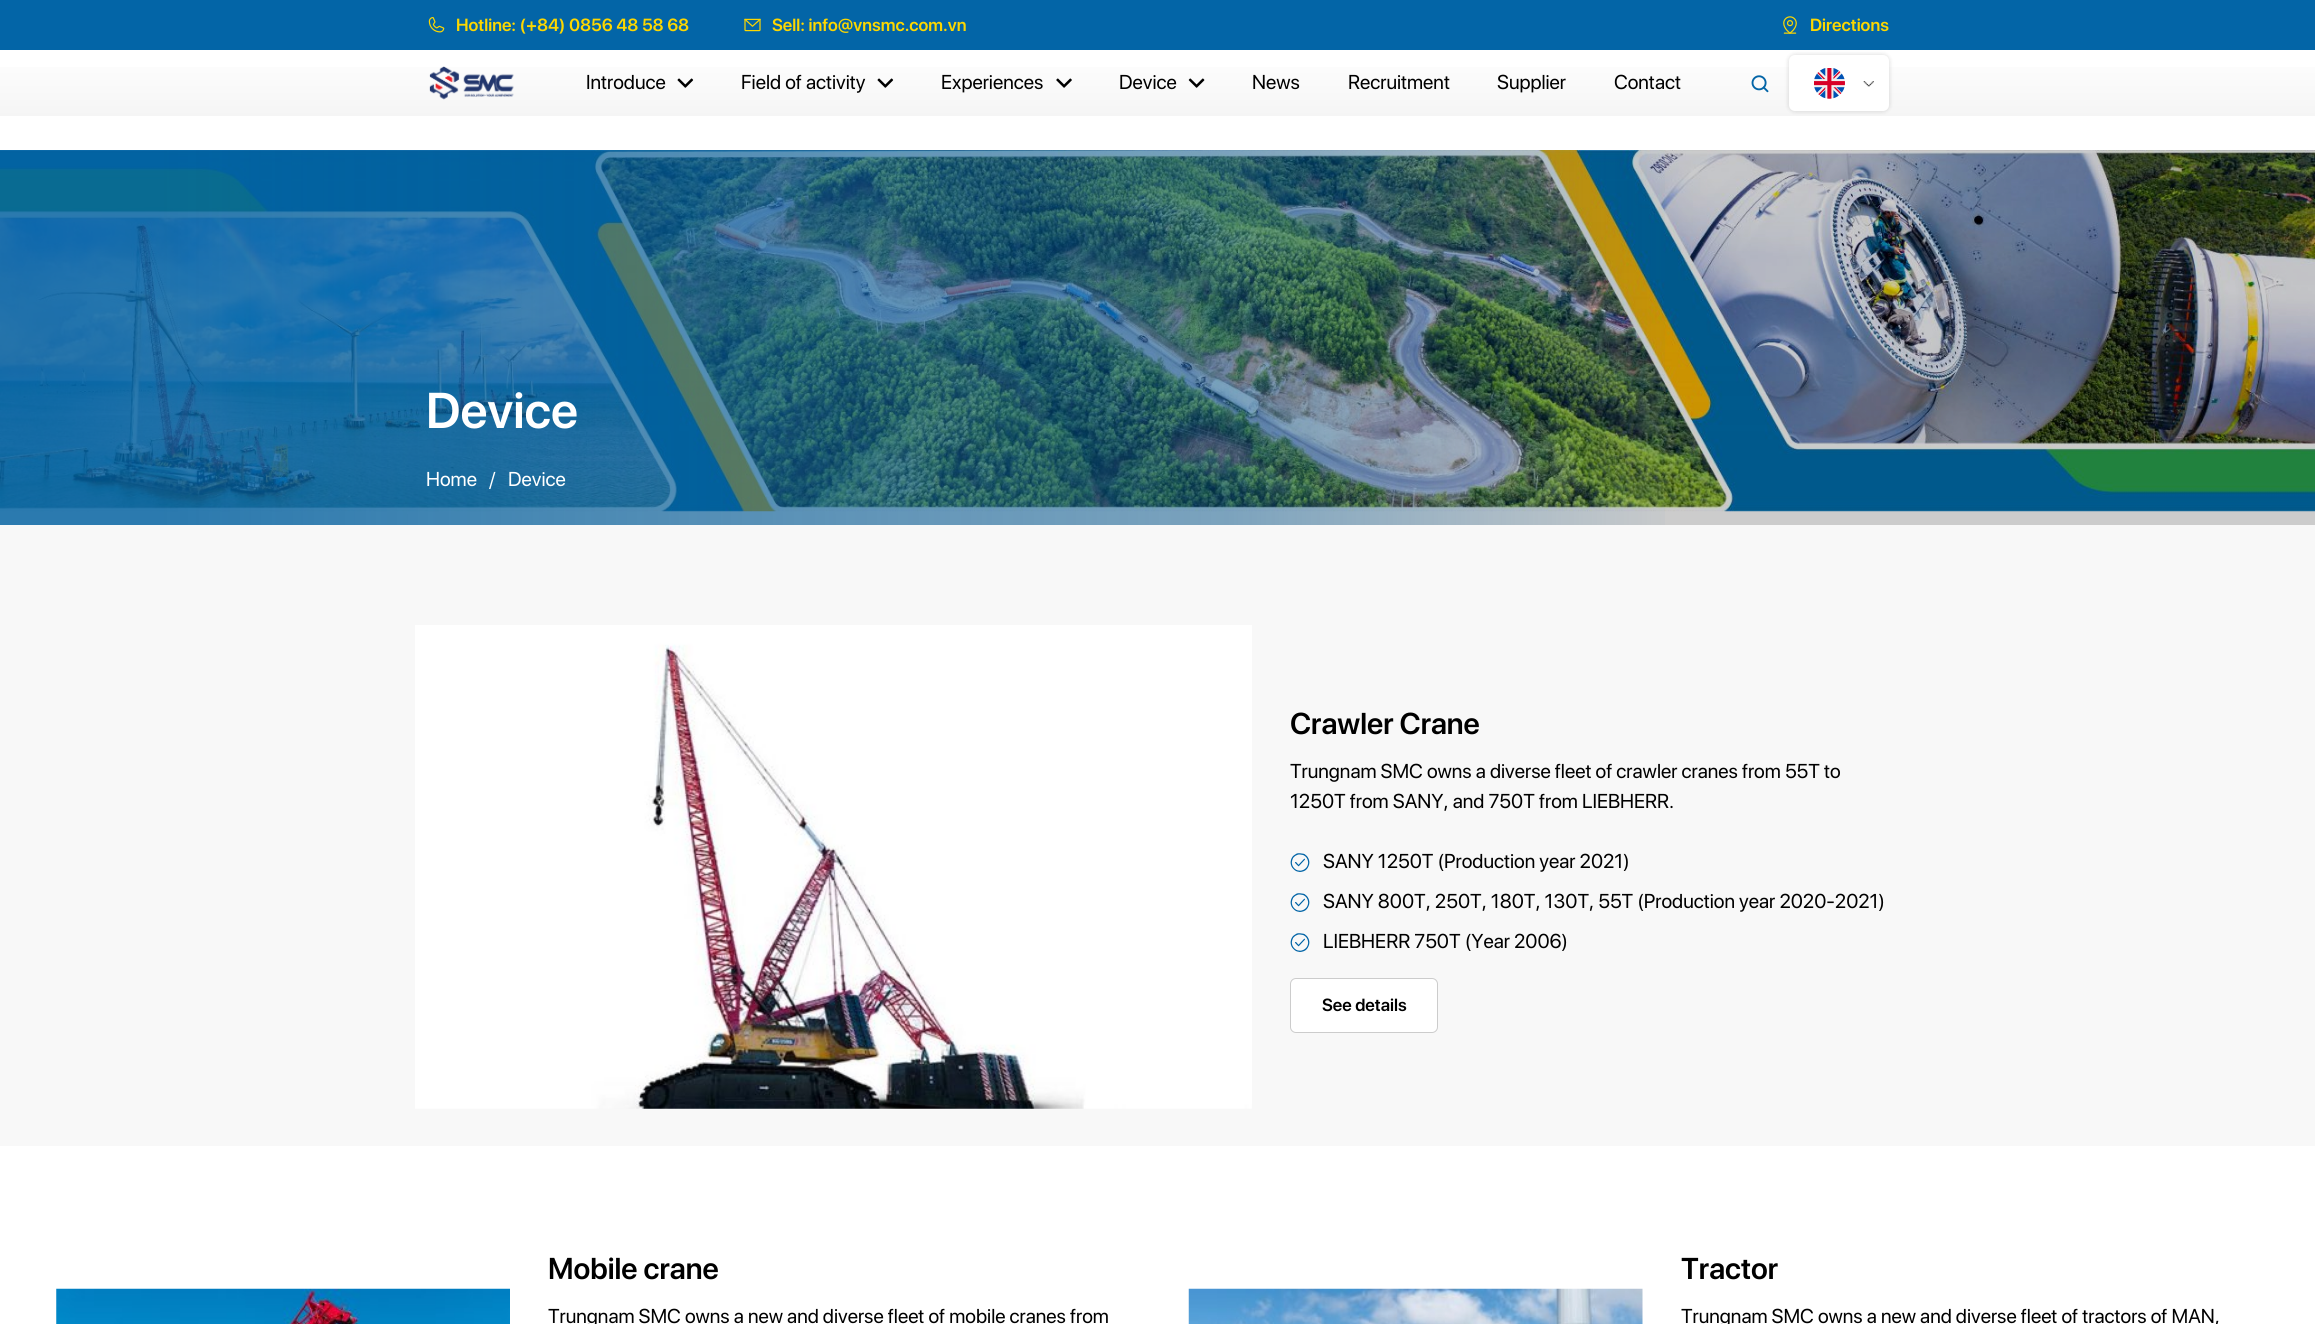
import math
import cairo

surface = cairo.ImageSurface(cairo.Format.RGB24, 2315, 1324)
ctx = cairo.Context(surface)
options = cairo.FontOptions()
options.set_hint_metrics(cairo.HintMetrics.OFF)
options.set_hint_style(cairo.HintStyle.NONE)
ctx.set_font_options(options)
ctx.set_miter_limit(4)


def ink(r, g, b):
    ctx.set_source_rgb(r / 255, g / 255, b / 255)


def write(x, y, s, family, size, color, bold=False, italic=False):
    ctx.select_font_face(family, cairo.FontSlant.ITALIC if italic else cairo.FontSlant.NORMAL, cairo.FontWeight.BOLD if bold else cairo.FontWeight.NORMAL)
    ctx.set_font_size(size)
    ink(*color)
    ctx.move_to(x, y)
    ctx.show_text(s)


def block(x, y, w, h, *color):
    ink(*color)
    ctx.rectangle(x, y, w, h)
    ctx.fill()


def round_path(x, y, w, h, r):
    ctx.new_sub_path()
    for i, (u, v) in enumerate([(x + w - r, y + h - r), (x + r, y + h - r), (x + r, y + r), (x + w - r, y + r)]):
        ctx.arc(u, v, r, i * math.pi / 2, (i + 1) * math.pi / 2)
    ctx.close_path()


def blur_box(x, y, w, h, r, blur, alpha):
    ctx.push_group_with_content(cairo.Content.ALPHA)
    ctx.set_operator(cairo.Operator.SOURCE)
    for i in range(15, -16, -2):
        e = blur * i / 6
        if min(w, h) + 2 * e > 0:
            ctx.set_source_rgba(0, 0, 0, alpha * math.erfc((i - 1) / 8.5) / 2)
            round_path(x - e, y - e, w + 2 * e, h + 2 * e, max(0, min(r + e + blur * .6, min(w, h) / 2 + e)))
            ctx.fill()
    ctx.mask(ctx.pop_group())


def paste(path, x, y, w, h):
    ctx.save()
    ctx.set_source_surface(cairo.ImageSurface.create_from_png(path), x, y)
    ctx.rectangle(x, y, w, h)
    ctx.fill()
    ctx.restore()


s1 = dict(family="SF Pro Display SemiBold", size=17.5, color=(253, 215, 0))
s2 = dict(family="SF Pro Display", size=20, color=(0, 0, 0))
s3 = dict(family="SF Pro Display SemiBold", size=50, color=(255, 255, 255))
s4 = dict(family="SF Pro Display", size=20, color=(255, 255, 255))
s5 = dict(family="SF Pro Display SemiBold", size=30, color=(0, 0, 0))
s6 = dict(family="SF Pro Display SemiBold", size=17.5, color=(0, 0, 0))

ink(255, 255, 255)
ctx.paint()
block(0, 511, 2315, 14, 204, 204, 204)
block(0, 0, 2315, 50, 3, 101, 167)
paste("pic1.png", 428, 17, 17, 16)
write(456, 31, "Hotline: (+84) 0856 48 58 68", **s1)
paste("pic2.png", 744, 18, 17, 14)
write(772, 31, "Sell: info@vnsmc.com.vn", **s1)
paste("pic3.png", 1783, 16, 14, 18)
write(1810, 31, "Directions", **s1)
gradient = cairo.LinearGradient(1158, 50, 1158, 116)
gradient.add_color_stop_rgba(0, 1, 1, 1, 1)
gradient.add_color_stop_rgba(1, 0.961, 0.961, 0.961, 1)
ctx.set_source(gradient)
ctx.rectangle(0, 67, 2315, 49)
ctx.fill()
paste("pic4.png", 429, 66, 85, 34)
write(586, 89, "Introduce", **s2)
paste("pic5.png", 677, 78, 17, 10)
write(741, 89, "Field of activity", **s2)
paste("pic5.png", 877, 78, 17, 10)
write(941, 89, "Experiences", **s2)
paste("pic6.png", 1056, 78, 16, 10)
write(1119, 89, "Device", **s2)
paste("pic7.png", 1188, 78, 17, 10)
write(1252, 89, "News", **s2)
write(1348, 89, "Recruitment", **s2)
write(1497, 89, "Supplier", **s2)
write(1614, 89, "Contact", **s2)
paste("pic8.png", 1751, 75, 18, 18)
ink(0, 0, 0)
blur_box(1789, 55, 100, 56, 6, 2.5, 0.16)
ink(255, 255, 255)
round_path(1789, 55, 100, 56, 6)
ctx.fill()
paste("pic9.png", 1863, 81, 11, 6)
paste("pic10.png", 1814, 68, 31, 31)
paste("pic11.png", 0, 150, 2315, 362)
gradient = cairo.LinearGradient(2315, 337, 0, 338)
gradient.add_color_stop_rgba(0.27, 0.012, 0.396, 0.655, 0)
gradient.add_color_stop_rgba(0.47, 0.012, 0.396, 0.655, 0.4)
gradient.add_color_stop_rgba(0.93, 0.012, 0.396, 0.655, 0.8)
ctx.set_source(gradient)
ctx.rectangle(0, 150, 1665, 375)
ctx.fill()
write(426, 428, "Device", **s3)
write(426, 486, "Home", **s4)
write(489, 486, "/", **s4)
write(508, 486, "Device", **s4)
block(0, 525, 2315, 621, 248, 248, 248)
paste("pic12.png", 415, 625, 837, 484)
write(1290, 734, "Crawler Crane", **s5)
write(1290, 778, "Trungnam SMC owns a diverse fleet of crawler cranes from 55T to", **s2)
write(1290, 808, "1250T from SANY, and 750T from LIEBHERR.", **s2)
paste("pic13.png", 1290, 853, 20, 19)
write(1323, 868, "SANY 1250T (Production year 2021)", **s2)
paste("pic13.png", 1290, 893, 20, 19)
write(1323, 908, "SANY 800T, 250T, 180T, 130T, 55T (Production year 2020-2021)", **s2)
paste("pic13.png", 1290, 933, 20, 19)
write(1323, 948, "LIEBHERR 750T (Year 2006)", **s2)
ink(255, 255, 255)
round_path(1290.5, 978.5, 147, 54, 5.5)
ctx.fill_preserve()
ink(204, 204, 204)
ctx.set_line_width(1)
ctx.stroke()
write(1322, 1011, "See details", **s6)
paste("pic14.png", 56, 1288, 454, 36)
write(548, 1279, "Mobile crane", **s5)
write(548, 1323, "Trungnam SMC owns a new and diverse fleet of mobile cranes from", **s2)
paste("pic15.png", 1188, 1288, 455, 36)
write(1681, 1279, "Tractor", **s5)
write(1681, 1323, "Trungnam SMC owns a new and diverse fleet of tractors of MAN,", **s2)
surface.write_to_png("screenshot.png")
